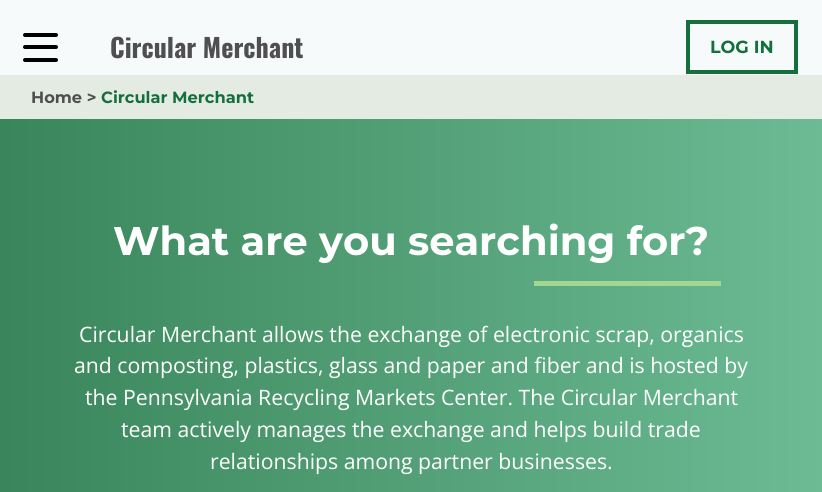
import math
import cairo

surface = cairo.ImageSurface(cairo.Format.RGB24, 822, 492)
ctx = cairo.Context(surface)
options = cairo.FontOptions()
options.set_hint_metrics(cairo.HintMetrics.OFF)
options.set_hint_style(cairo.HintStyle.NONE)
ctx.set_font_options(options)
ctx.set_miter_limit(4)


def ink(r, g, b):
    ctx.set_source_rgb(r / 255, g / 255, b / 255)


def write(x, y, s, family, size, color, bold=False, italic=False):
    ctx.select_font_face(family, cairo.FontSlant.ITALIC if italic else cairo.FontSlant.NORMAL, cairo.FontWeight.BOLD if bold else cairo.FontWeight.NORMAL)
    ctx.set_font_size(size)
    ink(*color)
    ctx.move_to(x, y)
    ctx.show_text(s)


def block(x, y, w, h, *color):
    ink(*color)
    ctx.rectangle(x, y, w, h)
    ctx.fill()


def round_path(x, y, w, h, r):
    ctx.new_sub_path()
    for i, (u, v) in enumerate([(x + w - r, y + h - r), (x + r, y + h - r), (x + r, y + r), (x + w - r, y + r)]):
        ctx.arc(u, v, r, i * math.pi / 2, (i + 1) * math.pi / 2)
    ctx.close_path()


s1 = dict(family="Oswald", size=26, color=(79, 79, 79), bold=True)
s2 = dict(family="Montserrat Thin", size=17.5, color=(21, 111, 60))
s3 = dict(family="Montserrat Thin", size=16.25, color=(79, 79, 79))
s4 = dict(family="Montserrat Thin", size=16.25, color=(21, 111, 60))
s5 = dict(family="Montserrat Thin", size=40, color=(255, 255, 255))
s6 = dict(family="Open Sans", size=21.25, color=(255, 255, 255))

ink(246, 250, 251)
ctx.paint()
ink(0, 0, 0)
round_path(23, 33, 35, 4, 2)
ctx.fill()
round_path(23, 45, 35, 4, 2)
ctx.fill()
round_path(23, 58, 35, 4, 2)
ctx.fill()
write(110, 58, "Circular Merchant", **s1)
ctx.rectangle(688, 22, 108, 50)
ink(21, 111, 60)
ctx.set_line_width(4)
ctx.stroke()
write(710, 53, "LOG IN", **s2)
gradient = cairo.LinearGradient(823, 378, 0, 378)
gradient.add_color_stop_rgba(0, 0.424, 0.733, 0.58, 1)
gradient.add_color_stop_rgba(1, 0.227, 0.522, 0.357, 1)
ctx.set_source(gradient)
ctx.rectangle(0, 119, 822, 373)
ctx.fill()
block(0, 75, 822, 44, 228, 235, 226)
write(31, 103, "Home >", **s3)
write(101, 103, "Circular Merchant", **s4)
write(113, 255, "What are you searching for?", **s5)
block(534, 281, 187, 5, 162, 215, 143)
write(79, 342, "Circular Merchant allows the exchange of electronic scrap, organics", **s6)
write(74, 373, "and composting, plastics, glass and paper and fiber and is hosted by", **s6)
write(85, 405, "the Pennsylvania Recycling Markets Center. The Circular Merchant", **s6)
write(121, 437, "team actively manages the exchange and helps build trade", **s6)
write(210, 469, "relationships among partner businesses.", **s6)
surface.write_to_png("screenshot.png")
